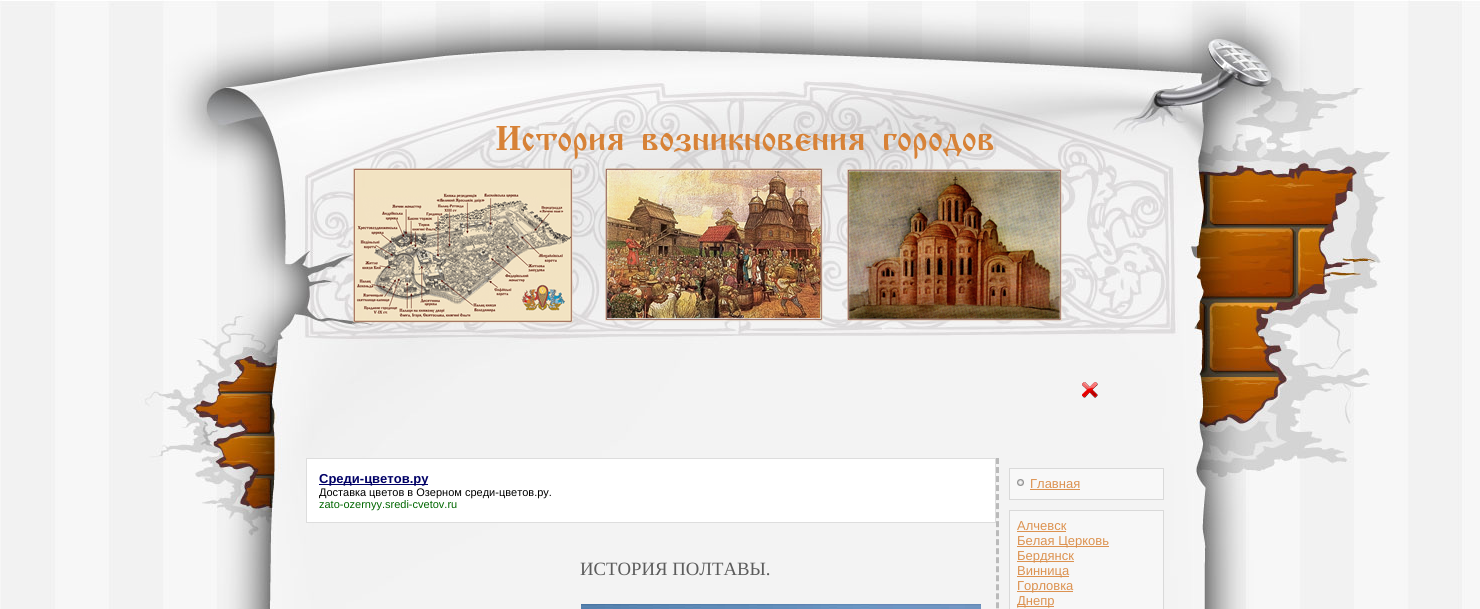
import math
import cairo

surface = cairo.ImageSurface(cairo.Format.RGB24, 1480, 609)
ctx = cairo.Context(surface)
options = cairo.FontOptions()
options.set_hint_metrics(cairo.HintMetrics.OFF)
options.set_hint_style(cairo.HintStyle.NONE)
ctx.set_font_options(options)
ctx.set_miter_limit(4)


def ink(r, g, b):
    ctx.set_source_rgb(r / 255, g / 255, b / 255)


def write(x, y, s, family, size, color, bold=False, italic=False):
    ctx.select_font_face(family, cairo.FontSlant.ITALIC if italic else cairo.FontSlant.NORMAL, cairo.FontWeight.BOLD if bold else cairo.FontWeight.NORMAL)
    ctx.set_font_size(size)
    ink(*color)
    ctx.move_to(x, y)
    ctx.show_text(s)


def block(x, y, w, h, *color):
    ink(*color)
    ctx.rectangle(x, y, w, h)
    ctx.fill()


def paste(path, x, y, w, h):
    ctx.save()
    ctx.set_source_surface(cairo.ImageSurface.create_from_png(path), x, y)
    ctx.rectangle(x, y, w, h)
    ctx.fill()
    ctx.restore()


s1 = dict(family="Liberation Sans", size=13, color=(0, 0, 102), bold=True)
s2 = dict(family="Liberation Sans", size=11, color=(0, 0, 0))
s3 = dict(family="Liberation Sans", size=11, color=(0, 102, 0))
s4 = dict(family="Liberation Serif", size=18.75, color=(92, 92, 92))
s5 = dict(family="Liberation Sans", size=13, color=(220, 146, 80))

ink(255, 255, 255)
ctx.paint()
paste("pic1.png", 0, 0, 1480, 609)
paste("pic2.png", 352, 126, 710, 198)
paste("pic3.png", 1082, 382, 16, 16)
ink(255, 255, 255)
ctx.rectangle(306.5, 458.5, 689, 64)
ctx.fill_preserve()
ink(221, 221, 221)
ctx.set_line_width(1)
ctx.stroke()
block(319, 484, 109, 1, 0, 0, 102)
write(319, 483, "Среди-цветов.ру", **s1)
write(319, 496, "Доставка цветов в Озерном среди-цветов.ру.", **s2)
write(319, 508, "zato-ozernyy.sredi-cvetov.ru", **s3)
write(580, 575, "ИСТОРИЯ ПОЛТАВЫ.", **s4)
paste("pic4.png", 581, 604, 400, 5)
ctx.new_path()
ctx.move_to(997.5, 458)
ctx.line_to(997.5, 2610)
ink(186, 186, 186)
ctx.set_line_width(3)
ctx.set_dash([6, 3.02])
ctx.stroke()
ink(248, 248, 248)
ctx.rectangle(1009.5, 468.5, 154, 31)
ctx.fill_preserve()
ink(217, 217, 217)
ctx.set_line_width(1)
ctx.set_dash([])
ctx.stroke()
paste("pic5.png", 1017, 479, 7, 7)
write(1030, 488, "Главная", **s5)
block(1030, 489, 50, 1, 220, 146, 80)
ink(247, 247, 247)
ctx.rectangle(1009.5, 510.5, 154, 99)
ctx.fill_preserve()
ink(217, 217, 217)
ctx.stroke()
write(1017, 530, "Алчевск", **s5)
block(1017, 531, 49, 1, 220, 146, 80)
block(1017, 546, 92, 1, 220, 146, 80)
write(1017, 545, "Белая Церковь", **s5)
block(1017, 561, 57, 1, 220, 146, 80)
write(1017, 560, "Бердянск", **s5)
block(1017, 576, 52, 1, 220, 146, 80)
write(1017, 575, "Винница", **s5)
block(1017, 591, 56, 1, 220, 146, 80)
write(1017, 590, "Горловка", **s5)
block(1017, 606, 37, 1, 220, 146, 80)
write(1017, 605, "Днепр", **s5)
surface.write_to_png("screenshot.png")
